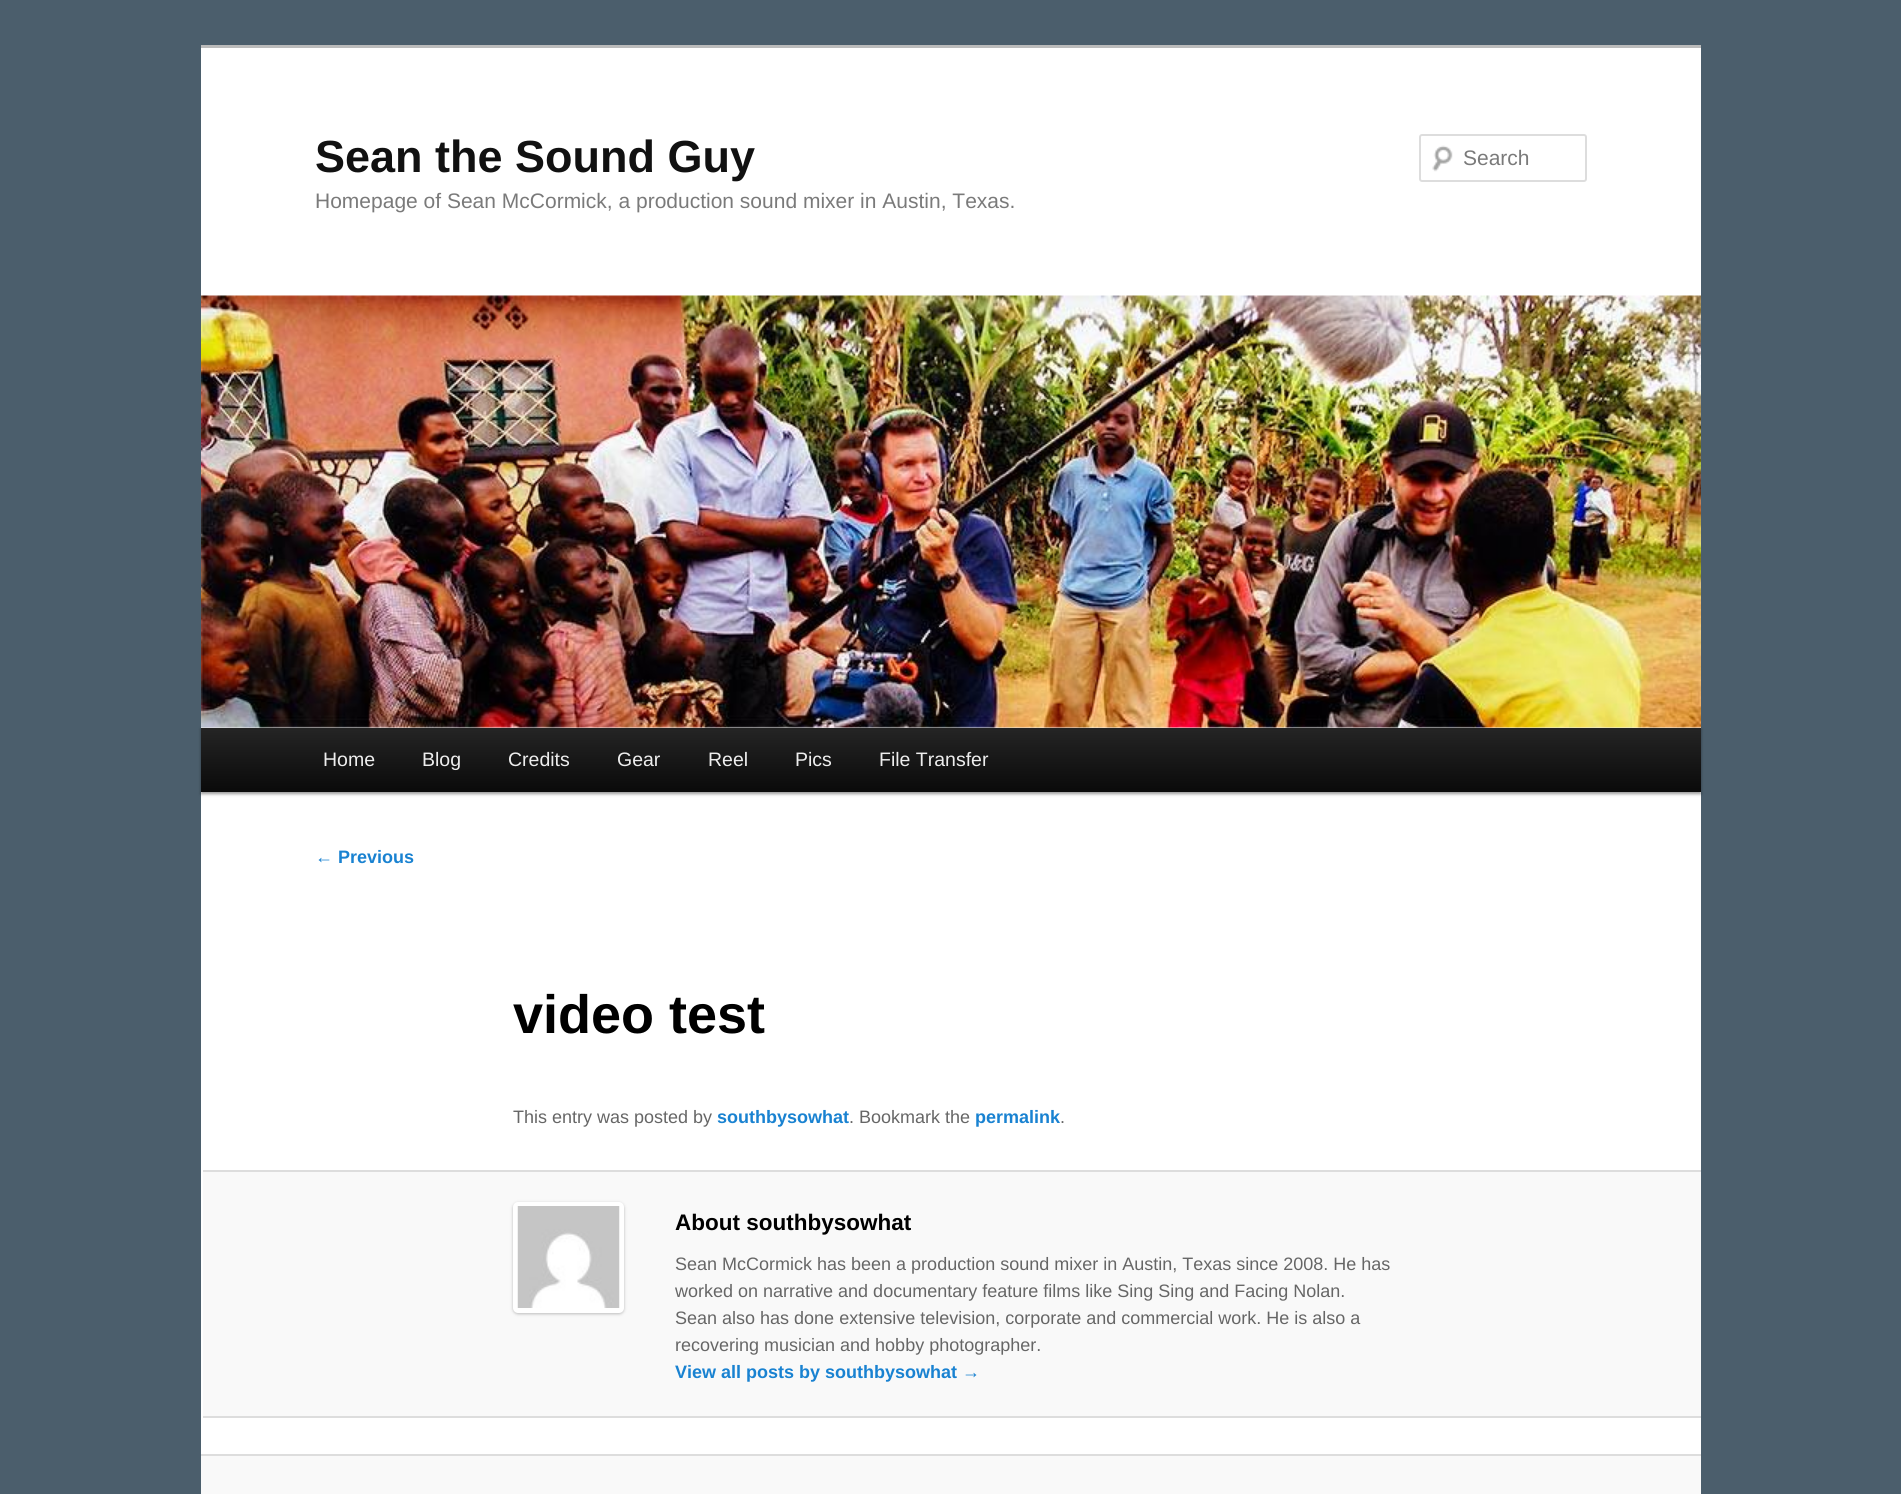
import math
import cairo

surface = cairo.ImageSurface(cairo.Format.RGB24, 1901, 1494)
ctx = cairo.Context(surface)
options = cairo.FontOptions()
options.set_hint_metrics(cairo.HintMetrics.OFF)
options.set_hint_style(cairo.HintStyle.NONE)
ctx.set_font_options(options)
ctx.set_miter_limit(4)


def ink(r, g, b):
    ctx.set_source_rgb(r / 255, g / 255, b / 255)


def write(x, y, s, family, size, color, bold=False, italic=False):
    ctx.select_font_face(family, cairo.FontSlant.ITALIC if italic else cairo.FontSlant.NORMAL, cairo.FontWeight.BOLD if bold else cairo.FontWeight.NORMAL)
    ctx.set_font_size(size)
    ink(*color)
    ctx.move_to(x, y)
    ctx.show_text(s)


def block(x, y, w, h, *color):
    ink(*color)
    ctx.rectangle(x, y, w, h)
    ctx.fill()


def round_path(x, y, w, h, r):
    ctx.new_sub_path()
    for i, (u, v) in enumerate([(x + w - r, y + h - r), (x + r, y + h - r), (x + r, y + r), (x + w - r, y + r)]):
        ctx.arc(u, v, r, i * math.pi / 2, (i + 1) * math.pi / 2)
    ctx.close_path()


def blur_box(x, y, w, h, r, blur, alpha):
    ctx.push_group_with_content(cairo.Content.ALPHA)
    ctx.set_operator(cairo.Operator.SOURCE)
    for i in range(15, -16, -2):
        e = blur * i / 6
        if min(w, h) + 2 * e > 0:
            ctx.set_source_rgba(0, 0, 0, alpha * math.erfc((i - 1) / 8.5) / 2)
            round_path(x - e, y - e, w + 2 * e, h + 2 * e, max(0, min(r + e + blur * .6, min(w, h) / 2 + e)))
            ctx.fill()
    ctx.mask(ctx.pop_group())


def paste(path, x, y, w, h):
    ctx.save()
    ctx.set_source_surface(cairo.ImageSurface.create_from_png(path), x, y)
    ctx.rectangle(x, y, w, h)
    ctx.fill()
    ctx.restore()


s1 = dict(family="Liberation Sans", size=45, color=(17, 17, 17), bold=True)
s2 = dict(family="Liberation Sans", size=21, color=(122, 122, 122))
s3 = dict(family="Liberation Sans", size=19.5, color=(238, 238, 238))
s4 = dict(family="Liberation Sans", size=18, color=(25, 130, 209))
s5 = dict(family="Liberation Sans", size=18, color=(25, 130, 209), bold=True)
s6 = dict(family="Liberation Sans", size=54, color=(0, 0, 0), bold=True)
s7 = dict(family="Liberation Sans", size=18, color=(102, 102, 102))
s8 = dict(family="Liberation Sans", size=22.5, color=(0, 0, 0), bold=True)

ink(75, 94, 108)
ctx.paint()
block(201, 48, 1500, 1406, 255, 255, 255)
block(201, 45, 1500, 3, 187, 187, 187)
write(315, 172, "Sean the Sound Guy", **s1)
write(315, 208, "Homepage of Sean McCormick, a production sound mixer in Austin, Texas.", **s2)
paste("pic1.png", 1432, 145, 21, 27)
round_path(1420, 135, 166, 46, 2)
ink(221, 221, 221)
ctx.stroke()
write(1463, 165, "Search", **s2)
ink(0, 0, 0)
blur_box(201, 729, 1500, 65, 0, 1.5, 0.4)
paste("pic2.png", 201, 295, 1500, 433)
gradient = cairo.LinearGradient(951, 727, 951, 792)
gradient.add_color_stop_rgba(0, 0.145, 0.145, 0.145, 1)
gradient.add_color_stop_rgba(1, 0.039, 0.039, 0.039, 1)
ctx.set_source(gradient)
ctx.rectangle(201, 728, 1500, 64)
ctx.fill()
write(323, 766, "Home", **s3)
write(422, 766, "Blog", **s3)
write(508, 766, "Credits", **s3)
write(617, 766, "Gear", **s3)
write(708, 766, "Reel", **s3)
write(795, 766, "Pics", **s3)
write(879, 766, "File Transfer", **s3)
write(315, 863, "←", **s4)
write(338, 863, "Previous", **s5)
write(513, 1033, "video test", **s6)
write(513, 1123, "This entry was posted by", **s7)
write(717, 1123, "southbysowhat", **s5)
write(849, 1123, ". Bookmark the", **s7)
write(975, 1123, "permalink", **s5)
write(1060, 1123, ".", **s7)
block(203, 1172, 1498, 244, 249, 249, 249)
block(203, 1170, 1498, 2, 221, 221, 221)
block(203, 1416, 1498, 2, 221, 221, 221)
ink(187, 187, 187)
blur_box(513, 1203, 111, 111, 5, 1.5, 1)
ink(255, 255, 255)
round_path(513, 1202, 111, 111, 5)
ctx.fill()
paste("pic3.png", 517, 1206, 103, 102)
write(675, 1230, "About southbysowhat", **s8)
write(675, 1270, "Sean McCormick has been a production sound mixer in Austin, Texas since 2008. He has", **s7)
write(675, 1297, "worked on narrative and documentary feature films like Sing Sing and Facing Nolan.", **s7)
write(675, 1324, "Sean also has done extensive television, corporate and commercial work. He is also a", **s7)
write(675, 1351, "recovering musician and hobby photographer.", **s7)
write(675, 1378, "View all posts by southbysowhat →", **s5)
block(201, 1456, 1500, 38, 249, 249, 249)
block(201, 1454, 1500, 2, 221, 221, 221)
surface.write_to_png("screenshot.png")
